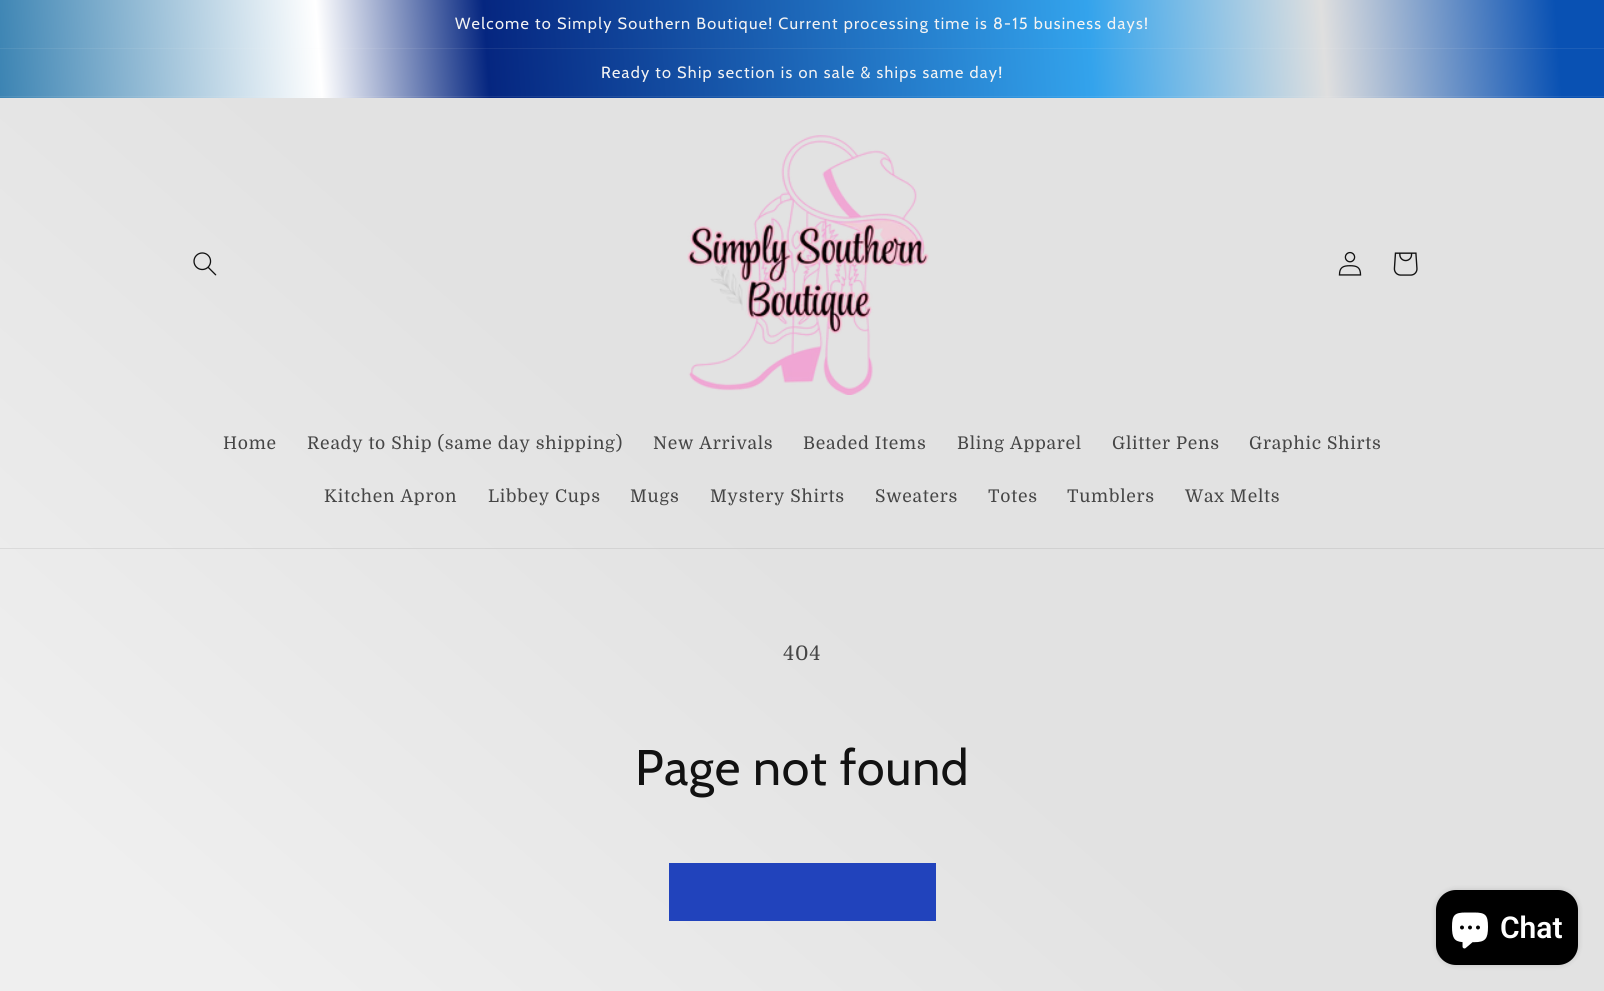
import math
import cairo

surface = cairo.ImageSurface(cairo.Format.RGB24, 1604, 991)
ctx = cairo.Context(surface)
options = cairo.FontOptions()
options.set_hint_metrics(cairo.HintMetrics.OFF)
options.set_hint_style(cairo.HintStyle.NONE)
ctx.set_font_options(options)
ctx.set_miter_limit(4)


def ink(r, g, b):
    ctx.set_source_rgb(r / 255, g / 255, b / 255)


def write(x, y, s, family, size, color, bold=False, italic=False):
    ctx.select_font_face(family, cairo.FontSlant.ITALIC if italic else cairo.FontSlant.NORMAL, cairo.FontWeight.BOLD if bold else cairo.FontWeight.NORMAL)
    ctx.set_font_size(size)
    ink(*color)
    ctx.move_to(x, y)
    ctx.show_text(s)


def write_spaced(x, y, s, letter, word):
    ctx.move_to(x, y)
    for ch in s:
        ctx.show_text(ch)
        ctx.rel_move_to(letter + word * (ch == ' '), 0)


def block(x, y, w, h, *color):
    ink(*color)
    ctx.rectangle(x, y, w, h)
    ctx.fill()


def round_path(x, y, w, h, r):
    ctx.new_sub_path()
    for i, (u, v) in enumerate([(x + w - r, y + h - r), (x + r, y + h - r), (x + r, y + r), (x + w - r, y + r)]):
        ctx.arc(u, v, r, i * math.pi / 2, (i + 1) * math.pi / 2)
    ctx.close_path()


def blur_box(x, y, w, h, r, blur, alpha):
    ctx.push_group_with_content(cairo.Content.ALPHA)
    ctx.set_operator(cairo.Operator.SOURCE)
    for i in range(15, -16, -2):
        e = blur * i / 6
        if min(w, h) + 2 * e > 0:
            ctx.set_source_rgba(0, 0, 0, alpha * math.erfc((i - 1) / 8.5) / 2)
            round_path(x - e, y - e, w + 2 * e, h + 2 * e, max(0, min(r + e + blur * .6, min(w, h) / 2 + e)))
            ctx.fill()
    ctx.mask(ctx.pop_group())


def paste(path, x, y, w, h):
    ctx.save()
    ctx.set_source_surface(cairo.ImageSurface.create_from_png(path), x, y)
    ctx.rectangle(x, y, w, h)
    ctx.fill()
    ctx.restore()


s1 = dict(family="Roboto SemiBold", size=30, color=(255, 255, 255))

ink(255, 255, 255)
ctx.paint()
gradient = cairo.LinearGradient(212, 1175, 1393, -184)
gradient.add_color_stop_rgba(0.09, 0.937, 0.937, 0.937, 1)
gradient.add_color_stop_rgba(0.47, 0.886, 0.886, 0.886, 1)
gradient.add_color_stop_rgba(0.75, 0.886, 0.886, 0.886, 1)
ctx.set_source(gradient)
ctx.rectangle(0, 98, 1604, 893)
ctx.fill()
gradient = cairo.LinearGradient(212, 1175, 1393, -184)
gradient.add_color_stop_rgba(0.09, 0.867, 0.867, 0.867, 1)
gradient.add_color_stop_rgba(0.47, 0.82, 0.82, 0.82, 1)
gradient.add_color_stop_rgba(0.75, 0.82, 0.82, 0.82, 1)
ctx.set_source(gradient)
ctx.rectangle(0, 548, 1604, 1)
ctx.fill()
gradient = cairo.LinearGradient(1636, 437, -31, 554)
gradient.add_color_stop_rgba(0.03, 0.035, 0.318, 0.702, 1)
gradient.add_color_stop_rgba(0.17, 0.875, 0.875, 0.875, 1)
gradient.add_color_stop_rgba(0.31, 0.2, 0.639, 0.925, 1)
gradient.add_color_stop_rgba(0.67, 0.02, 0.149, 0.502, 1)
gradient.add_color_stop_rgba(0.77, 1, 1, 1, 1)
gradient.add_color_stop_rgba(0.97, 0.204, 0.498, 0.69, 1)
ctx.set_source(gradient)
ctx.rectangle(0, 0, 1604, 48)
ctx.fill()
gradient = cairo.LinearGradient(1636, 437, -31, 554)
gradient.add_color_stop_rgba(0.03, 0.11, 0.369, 0.722, 1)
gradient.add_color_stop_rgba(0.17, 0.882, 0.882, 0.882, 1)
gradient.add_color_stop_rgba(0.31, 0.259, 0.663, 0.929, 1)
gradient.add_color_stop_rgba(0.67, 0.094, 0.212, 0.537, 1)
gradient.add_color_stop_rgba(0.77, 0.996, 0.996, 0.996, 1)
gradient.add_color_stop_rgba(0.97, 0.263, 0.533, 0.71, 1)
ctx.set_source(gradient)
ctx.rectangle(0, 48, 1604, 1)
ctx.fill()
ctx.select_font_face("Cabin")
ctx.set_font_size(16.25)
ink(243, 243, 243)
write_spaced(455, 29, "Welcome to Simply Southern Boutique! Current processing time is 8-15 business days!", 1.25, 0)
gradient = cairo.LinearGradient(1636, 437, -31, 554)
gradient.add_color_stop_rgba(0.03, 0.035, 0.318, 0.702, 1)
gradient.add_color_stop_rgba(0.17, 0.875, 0.875, 0.875, 1)
gradient.add_color_stop_rgba(0.31, 0.2, 0.639, 0.925, 1)
gradient.add_color_stop_rgba(0.67, 0.02, 0.149, 0.502, 1)
gradient.add_color_stop_rgba(0.77, 1, 1, 1, 1)
gradient.add_color_stop_rgba(0.97, 0.204, 0.498, 0.69, 1)
ctx.set_source(gradient)
ctx.rectangle(0, 49, 1604, 49)
ctx.fill()
gradient = cairo.LinearGradient(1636, 437, -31, 554)
gradient.add_color_stop_rgba(0.03, 0.11, 0.369, 0.722, 1)
gradient.add_color_stop_rgba(0.17, 0.882, 0.882, 0.882, 1)
gradient.add_color_stop_rgba(0.31, 0.259, 0.663, 0.929, 1)
gradient.add_color_stop_rgba(0.67, 0.094, 0.212, 0.537, 1)
gradient.add_color_stop_rgba(0.77, 0.996, 0.996, 0.996, 1)
gradient.add_color_stop_rgba(0.97, 0.263, 0.533, 0.71, 1)
ctx.set_source(gradient)
ctx.rectangle(0, 96, 1604, 1)
ctx.fill()
ink(243, 243, 243)
write_spaced(601, 78, "Ready to Ship section is on sale & ships same day!", 1.25, 0)
paste("pic1.png", 193, 252, 24, 24)
paste("pic2.png", 687, 135, 242, 260)
paste("pic3.png", 1338, 251, 24, 25)
paste("pic4.png", 1393, 252, 25, 24)
ctx.select_font_face("Domine")
ctx.set_font_size(17.5)
ink(70, 70, 70)
write_spaced(223, 449, "Home", 0.75, 0)
write_spaced(307, 449, "Ready to Ship (same day shipping)", 0.75, 0)
write_spaced(653, 449, "New Arrivals", 0.75, 0)
write_spaced(803, 449, "Beaded Items", 0.75, 0)
write_spaced(957, 449, "Bling Apparel", 0.75, 0)
write_spaced(1112, 449, "Glitter Pens", 0.75, 0)
write_spaced(1249, 449, "Graphic Shirts", 0.75, 0)
write_spaced(324, 502, "Kitchen Apron", 0.75, 0)
write_spaced(488, 502, "Libbey Cups", 0.75, 0)
write_spaced(630, 502, "Mugs", 0.75, 0)
write_spaced(710, 502, "Mystery Shirts", 0.75, 0)
write_spaced(875, 502, "Sweaters", 0.75, 0)
write_spaced(988, 502, "Totes", 0.75, 0)
write_spaced(1067, 502, "Tumblers", 0.75, 0)
write_spaced(1185, 502, "Wax Melts", 0.75, 0)
ctx.set_font_size(20)
write_spaced(783, 660, "404", 0.75, 0)
ctx.select_font_face("Cabin")
ctx.set_font_size(50)
ink(18, 18, 18)
write_spaced(635, 785, "Page not found", 0.75, 0)
block(669, 863, 267, 58, 33, 67, 188)
ink(0, 0, 0)
blur_box(1436, 890, 142, 75, 20, 3, 0.15)
ink(0, 0, 0)
round_path(1436, 890, 142, 75, 20)
ctx.fill()
paste("pic5.png", 1452, 912, 36, 37)
write(1500, 938, "Chat", **s1)
surface.write_to_png("screenshot.png")
